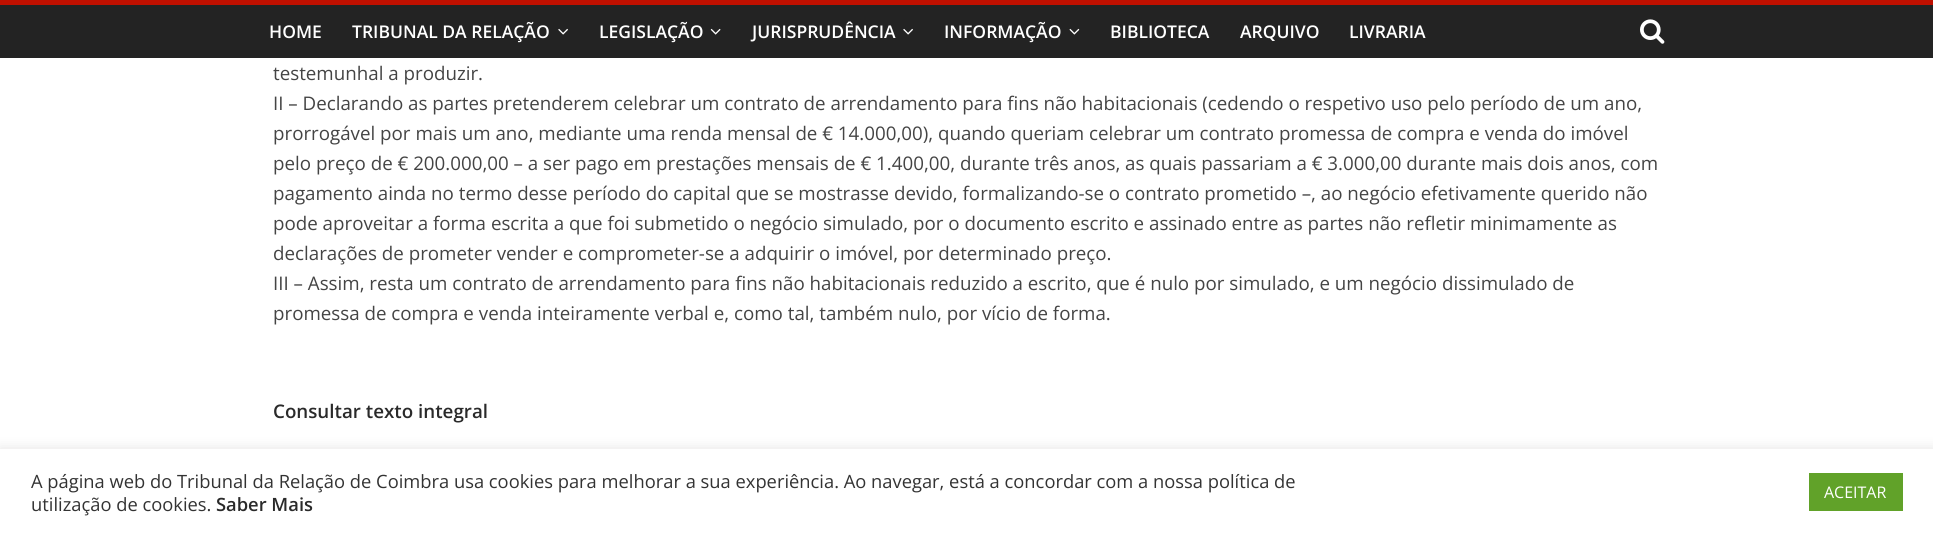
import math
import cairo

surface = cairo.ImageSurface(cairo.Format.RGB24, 1933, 535)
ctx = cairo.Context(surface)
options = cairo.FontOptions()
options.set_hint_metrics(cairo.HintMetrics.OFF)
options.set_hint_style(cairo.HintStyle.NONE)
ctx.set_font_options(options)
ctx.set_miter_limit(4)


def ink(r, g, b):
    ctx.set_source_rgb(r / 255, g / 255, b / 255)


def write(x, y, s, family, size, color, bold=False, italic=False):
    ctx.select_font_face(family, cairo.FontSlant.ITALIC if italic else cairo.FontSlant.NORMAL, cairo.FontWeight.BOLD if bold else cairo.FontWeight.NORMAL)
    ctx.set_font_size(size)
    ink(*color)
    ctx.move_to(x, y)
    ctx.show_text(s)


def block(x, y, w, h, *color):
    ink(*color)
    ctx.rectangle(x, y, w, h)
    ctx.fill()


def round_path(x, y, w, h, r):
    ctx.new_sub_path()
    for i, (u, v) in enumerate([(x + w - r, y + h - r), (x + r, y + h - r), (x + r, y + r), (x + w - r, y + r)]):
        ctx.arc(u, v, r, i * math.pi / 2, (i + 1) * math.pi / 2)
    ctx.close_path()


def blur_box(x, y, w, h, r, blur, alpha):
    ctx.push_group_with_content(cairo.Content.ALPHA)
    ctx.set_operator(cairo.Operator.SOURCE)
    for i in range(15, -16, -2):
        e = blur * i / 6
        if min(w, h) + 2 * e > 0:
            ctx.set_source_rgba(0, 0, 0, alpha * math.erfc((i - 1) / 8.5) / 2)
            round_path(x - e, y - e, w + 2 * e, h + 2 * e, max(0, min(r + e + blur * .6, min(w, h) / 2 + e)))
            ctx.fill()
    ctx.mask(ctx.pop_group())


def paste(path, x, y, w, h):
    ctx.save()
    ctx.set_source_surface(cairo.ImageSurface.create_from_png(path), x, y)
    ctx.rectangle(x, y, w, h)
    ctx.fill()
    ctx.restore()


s1 = dict(family="Open Sans SemiBold", size=17.5, color=(255, 255, 255))
s2 = dict(family="Open Sans", size=18.75, color=(68, 68, 68))
s3 = dict(family="Open Sans SemiBold", size=18.75, color=(42, 42, 42))
s4 = dict(family="Open Sans", size=18.33, color=(51, 51, 51))
s5 = dict(family="Open Sans SemiBold", size=18.33, color=(42, 42, 42))
s6 = dict(family="Open Sans", size=16, color=(255, 255, 255))

ink(255, 255, 255)
ctx.paint()
block(0, 5, 1933, 53, 35, 35, 35)
block(0, 0, 1933, 5, 191, 16, 0)
write(269, 38, "HOME", **s1)
write(352, 38, "TRIBUNAL DA RELAÇÃO", **s1)
paste("pic1.png", 558, 28, 10, 7)
write(599, 38, "LEGISLAÇÃO", **s1)
paste("pic2.png", 710, 28, 11, 7)
write(752, 38, "JURISPRUDÊNCIA", **s1)
paste("pic1.png", 903, 28, 10, 7)
write(944, 38, "INFORMAÇÃO", **s1)
paste("pic3.png", 1069, 28, 11, 7)
write(1110, 38, "BIBLIOTECA", **s1)
write(1240, 38, "ARQUIVO", **s1)
write(1349, 38, "LIVRARIA", **s1)
paste("pic4.png", 1640, 19, 25, 25)
write(273, 80, "testemunhal a produzir.", **s2)
write(273, 110, "II – Declarando as partes pretenderem celebrar um contrato de arrendamento para fins não habitacionais (cedendo o respetivo uso pelo período de um ano,", **s2)
write(273, 140, "prorrogável por mais um ano, mediante uma renda mensal de € 14.000,00), quando queriam celebrar um contrato promessa de compra e venda do imóvel", **s2)
write(273, 170, "pelo preço de € 200.000,00 – a ser pago em prestações mensais de € 1.400,00, durante três anos, as quais passariam a € 3.000,00 durante mais dois anos, com", **s2)
write(273, 200, "pagamento ainda no termo desse período do capital que se mostrasse devido, formalizando-se o contrato prometido –, ao negócio efetivamente querido não", **s2)
write(273, 230, "pode aproveitar a forma escrita a que foi submetido o negócio simulado, por o documento escrito e assinado entre as partes não refletir minimamente as", **s2)
write(273, 260, "declarações de prometer vender e comprometer-se a adquirir o imóvel, por determinado preço.", **s2)
write(273, 290, "III – Assim, resta um contrato de arrendamento para fins não habitacionais reduzido a escrito, que é nulo por simulado, e um negócio dissimulado de", **s2)
write(273, 320, "promessa de compra e venda inteiramente verbal e, como tal, também nulo, por vício de forma.", **s2)
write(273, 418, "Consultar texto integral", **s3)
ink(172, 171, 171)
blur_box(0, 448, 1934, 86, 0, 6, 0.3)
block(0, 449, 1933, 86, 255, 255, 255)
write(31, 488, "A página web do Tribunal da Relação de Coimbra usa cookies para melhorar a sua experiência. Ao navegar, está a concordar com a nossa política de", **s4)
write(31, 511, "utilização de cookies.", **s4)
write(216, 511, "Saber Mais", **s5)
block(1809, 473, 94, 38, 97, 162, 41)
write(1824, 498, "ACEITAR", **s6)
surface.write_to_png("screenshot.png")
